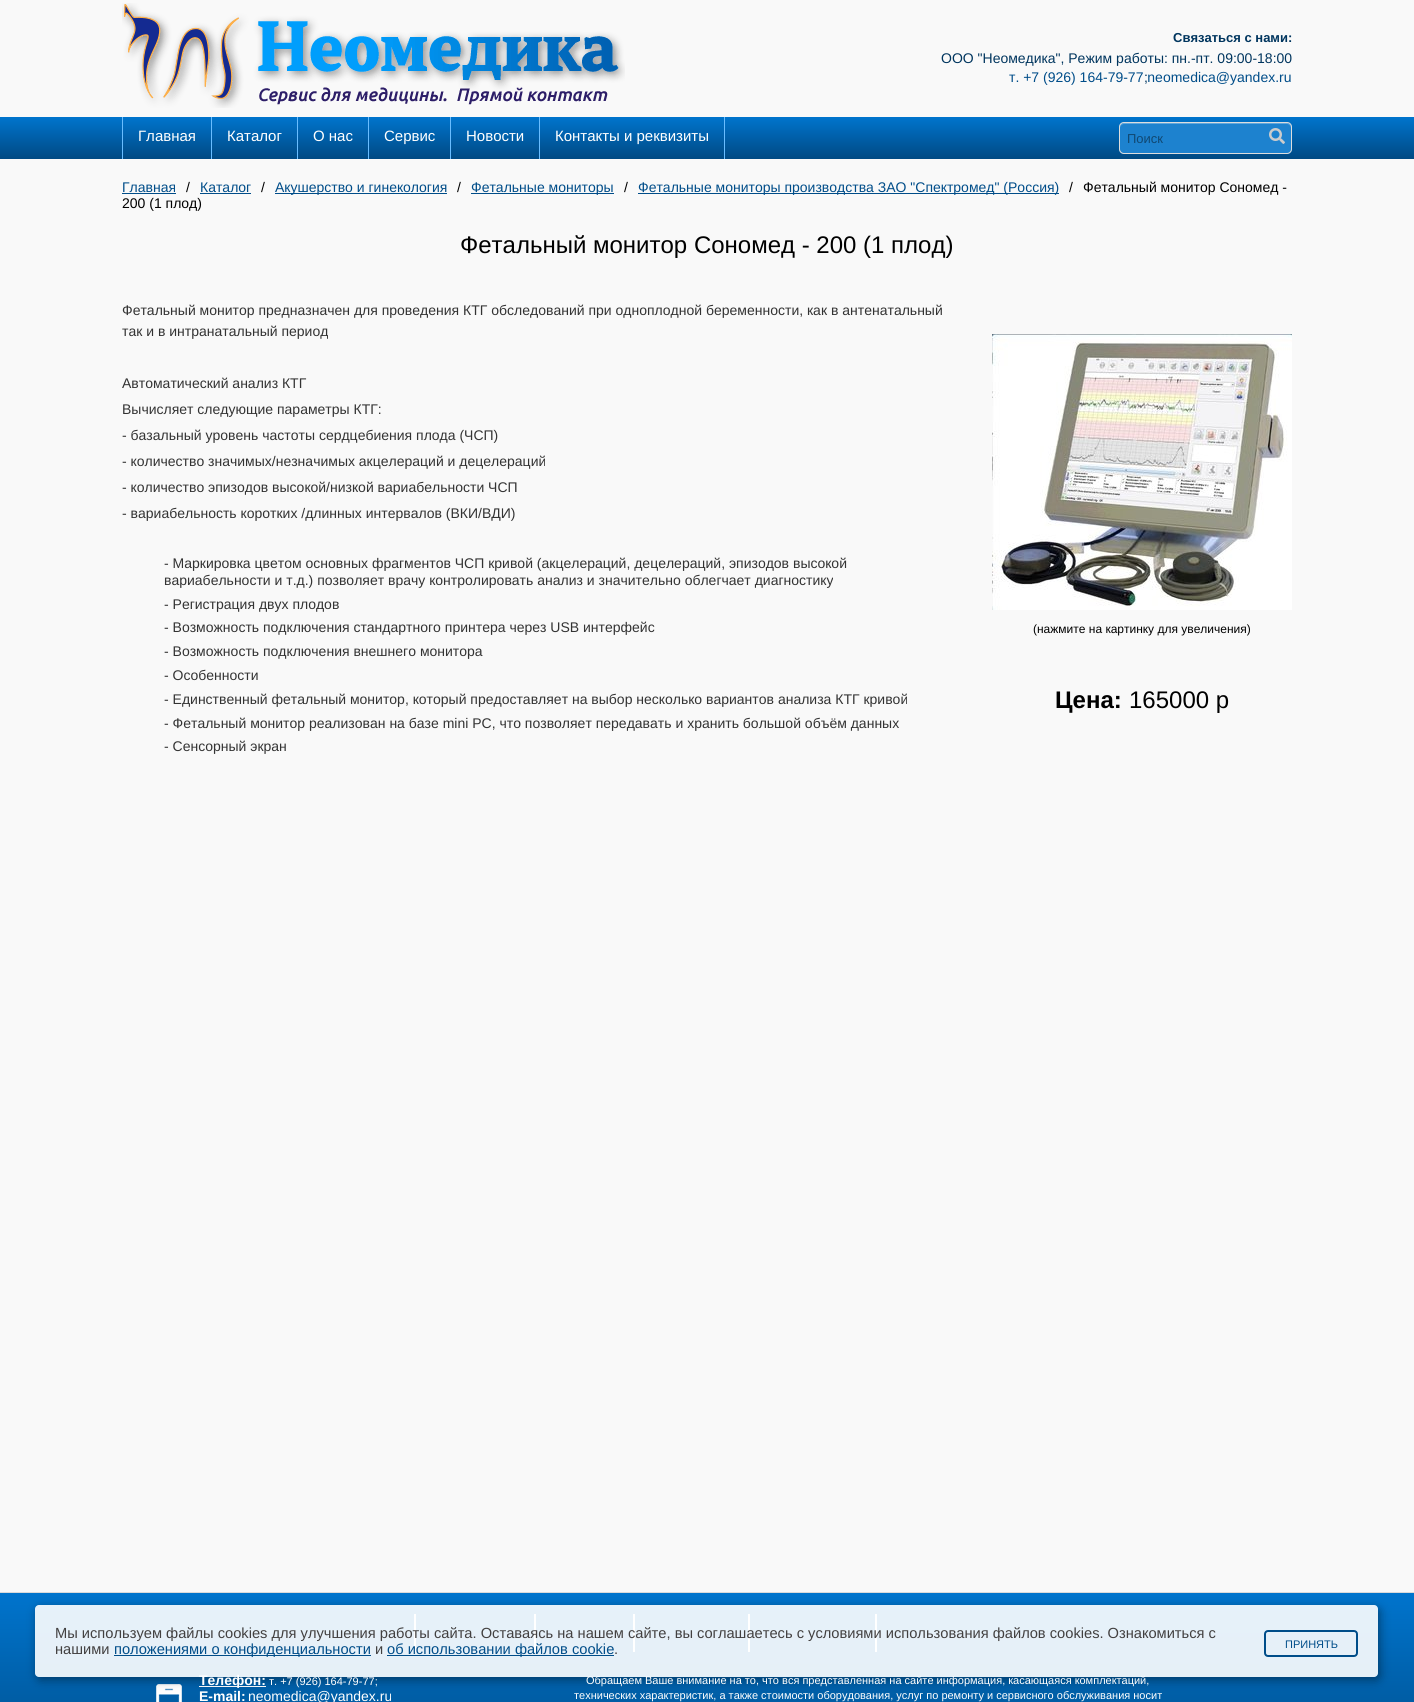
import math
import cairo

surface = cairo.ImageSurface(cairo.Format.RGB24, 1414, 1702)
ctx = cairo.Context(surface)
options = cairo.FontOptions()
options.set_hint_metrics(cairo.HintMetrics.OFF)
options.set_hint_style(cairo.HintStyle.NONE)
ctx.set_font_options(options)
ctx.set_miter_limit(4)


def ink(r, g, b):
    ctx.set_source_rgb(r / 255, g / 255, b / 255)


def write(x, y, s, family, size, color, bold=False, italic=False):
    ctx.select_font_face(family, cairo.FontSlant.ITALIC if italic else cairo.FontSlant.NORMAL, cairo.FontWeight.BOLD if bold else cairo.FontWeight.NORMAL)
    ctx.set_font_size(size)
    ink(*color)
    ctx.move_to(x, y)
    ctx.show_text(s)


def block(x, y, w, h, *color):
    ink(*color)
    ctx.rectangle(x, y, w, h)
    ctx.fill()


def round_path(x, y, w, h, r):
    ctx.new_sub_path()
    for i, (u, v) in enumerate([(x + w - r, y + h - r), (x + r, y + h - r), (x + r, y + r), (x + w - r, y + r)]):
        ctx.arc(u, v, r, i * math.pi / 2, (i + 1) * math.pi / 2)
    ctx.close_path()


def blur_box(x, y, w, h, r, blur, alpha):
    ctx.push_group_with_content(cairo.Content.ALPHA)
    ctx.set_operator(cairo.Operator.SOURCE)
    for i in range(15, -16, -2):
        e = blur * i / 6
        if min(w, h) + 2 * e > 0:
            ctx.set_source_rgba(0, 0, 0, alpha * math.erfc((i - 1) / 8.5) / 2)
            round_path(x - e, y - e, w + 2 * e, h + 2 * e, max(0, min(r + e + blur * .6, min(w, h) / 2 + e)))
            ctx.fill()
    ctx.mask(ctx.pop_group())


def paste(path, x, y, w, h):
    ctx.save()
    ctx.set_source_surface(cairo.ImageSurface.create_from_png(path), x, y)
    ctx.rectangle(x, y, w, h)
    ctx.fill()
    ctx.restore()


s1 = dict(family="Liberation Sans", size=13, color=(0, 53, 94), bold=True)
s2 = dict(family="Liberation Sans", size=14, color=(0, 53, 94))
s3 = dict(family="Liberation Sans", size=14, color=(0, 77, 137))
s4 = dict(family="Liberation Sans", size=15, color=(255, 255, 255))
s5 = dict(family="Liberation Sans", size=13, color=(16, 72, 114))
s6 = dict(family="Liberation Sans", size=14, color=(0, 0, 0))
s7 = dict(family="Liberation Sans", size=24, color=(0, 0, 0))
s8 = dict(family="Liberation Sans", size=14, color=(51, 51, 51))
s9 = dict(family="Liberation Sans", size=12, color=(0, 0, 0))
s10 = dict(family="Liberation Sans", size=24, color=(0, 0, 0), bold=True)
s11 = dict(family="Liberation Sans", size=14, color=(255, 255, 255), bold=True)
s12 = dict(family="Liberation Sans", size=11, color=(255, 255, 255))
s13 = dict(family="Liberation Sans", size=14.67, color=(66, 64, 64))
s14 = dict(family="Liberation Sans", size=14.67, color=(0, 77, 137))
s15 = dict(family="Liberation Sans", size=11, color=(0, 77, 137))
s16 = dict(family="Liberation Sans", size=14, color=(255, 255, 255))

ink(249, 249, 249)
ctx.paint()
paste("pic1.png", 122, 3, 503, 105)
write(1173, 42, "Связаться с нами:", **s1)
write(941, 63, "ООО \"Неомедика\", Режим работы: пн.-пт. 09:00-18:00", **s2)
write(1009, 82, "т. +7 (926) 164-79-77 neomedica@yandex.ru", **s3)
write(1144, 82, ";", **s2)
gradient = cairo.LinearGradient(707, 117, 707, 159)
gradient.add_color_stop_rgba(0, 0, 0.455, 0.804, 1)
gradient.add_color_stop_rgba(1, 0, 0.29, 0.514, 1)
ctx.set_source(gradient)
ctx.rectangle(0, 117, 1414, 42)
ctx.fill()
block(122, 117, 1, 42, 105, 189, 255)
write(138, 141, "Главная", **s4)
block(211, 117, 1, 42, 105, 189, 255)
write(227, 141, "Каталог", **s4)
block(297, 117, 1, 42, 105, 189, 255)
write(313, 141, "О нас", **s4)
block(368, 117, 1, 42, 105, 189, 255)
write(384, 141, "Сервис", **s4)
block(450, 117, 1, 42, 105, 189, 255)
write(466, 141, "Новости", **s4)
block(724, 117, 1, 42, 105, 189, 255)
block(539, 117, 1, 42, 105, 189, 255)
write(555, 141, "Контакты и реквизиты", **s4)
ink(29, 130, 207)
round_path(1119, 122, 173, 32, 5)
ctx.fill()
ink(97, 168, 221)
ctx.new_path()
ctx.move_to(1124, 124)
ctx.line_to(1287, 124)
ctx.curve_to(1289, 124, 1291, 126, 1291, 128)
ctx.line_to(1291, 127)
ctx.curve_to(1291, 125, 1289, 123, 1287, 123)
ctx.line_to(1124, 123)
ctx.curve_to(1122, 123, 1120, 125, 1120, 127)
ctx.line_to(1120, 128)
ctx.curve_to(1120, 126, 1122, 124, 1124, 124)
ctx.close_path()
ctx.fill()
round_path(1119.5, 122.5, 172, 31, 4.5)
ink(221, 221, 221)
ctx.set_line_width(1)
ctx.stroke()
write(1127, 143, "Поиск", **s5)
paste("pic2.png", 1269, 128, 16, 16)
write(122, 192, "Главная", **s3)
block(122, 193, 54, 1, 0, 77, 137)
write(186, 192, "/", **s6)
write(200, 192, "Каталог", **s3)
block(200, 193, 51, 1, 0, 77, 137)
write(261, 192, "/", **s6)
block(275, 193, 172, 1, 0, 77, 137)
write(275, 192, "Акушерство и гинекология", **s3)
write(457, 192, "/", **s6)
block(471, 193, 143, 1, 0, 77, 137)
write(471, 192, "Фетальные мониторы", **s3)
write(624, 192, "/", **s6)
block(638, 193, 421, 1, 0, 77, 137)
write(638, 192, "Фетальные мониторы производства ЗАО \"Спектромед\" (Россия)", **s3)
write(1069, 192, "/", **s6)
write(1083, 192, "Фетальный монитор Cономед -", **s6)
write(122, 208, "200 (1 плод)", **s6)
write(460, 253, "Фетальный монитор Cономед - 200 (1 плод)", **s7)
write(122, 315, "Фетальный монитор предназначен для проведения КТГ обследований при одноплодной беременности, как в антенатальный", **s8)
write(122, 336, "так и в интранатальный период", **s8)
write(122, 388, "Автоматический анализ КТГ", **s8)
write(122, 414, "Вычисляет следующие параметры КТГ:", **s8)
write(122, 440, "- базальный уровень частоты сердцебиения плода (ЧСП)", **s8)
write(122, 466, "- количество значимых/незначимых акцелераций и децелераций", **s8)
write(122, 492, "- количество эпизодов высокой/низкой вариабельности ЧСП", **s8)
write(122, 518, "- вариабельность коротких /длинных интервалов (ВКИ/ВДИ)", **s8)
write(164, 568, "- Маркировка цветом основных фрагментов ЧСП кривой (акцелераций, децелераций, эпизодов высокой", **s8)
write(164, 585, "вариабельности и т.д.) позволяет врачу контролировать анализ и значительно облегчает диагностику", **s8)
write(164, 609, "- Регистрация двух плодов", **s8)
write(164, 632, "- Возможность подключения стандартного принтера через USB интерфейс", **s8)
write(164, 656, "- Возможность подключения внешнего монитора", **s8)
write(164, 680, "- Особенности", **s8)
write(164, 704, "- Единственный фетальный монитор, который предоставляет на выбор несколько вариантов анализа КТГ кривой", **s8)
write(164, 728, "- Фетальный монитор реализован на базе mini PC, что позволяет передавать и хранить большой объём данных", **s8)
write(164, 751, "- Сенсорный экран", **s8)
paste("pic3.png", 992, 334, 300, 276)
write(1033, 633, "(нажмите на картинку для увеличения)", **s9)
write(1055, 708, "Цена:", **s10)
write(1129, 708, "165000 р", **s7)
gradient = cairo.LinearGradient(707, 1593, 707, 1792)
gradient.add_color_stop_rgba(0, 0, 0.455, 0.804, 1)
gradient.add_color_stop_rgba(1, 0, 0.29, 0.514, 1)
ctx.set_source(gradient)
ctx.rectangle(0, 1593, 1414, 109)
ctx.fill()
block(0, 1592, 1414, 1, 219, 218, 218)
block(414, 1614, 2, 38, 255, 255, 255)
block(534, 1614, 2, 38, 255, 255, 255)
block(633, 1614, 2, 38, 255, 255, 255)
block(748, 1614, 2, 38, 255, 255, 255)
block(875, 1614, 2, 38, 255, 255, 255)
paste("pic4.png", 156, 1684, 26, 18)
block(199, 1686, 67, 1, 255, 255, 255)
ctx.save()
ctx.set_fill_rule(cairo.FillRule.EVEN_ODD)
ctx.new_path()
ctx.move_to(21, 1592)
ctx.line_to(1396, 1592)
ctx.line_to(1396, 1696)
ctx.line_to(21, 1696)
ctx.close_path()
ctx.move_to(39, 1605)
ctx.line_to(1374, 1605)
ctx.curve_to(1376, 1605, 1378, 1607, 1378, 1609)
ctx.line_to(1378, 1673)
ctx.curve_to(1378, 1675, 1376, 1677, 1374, 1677)
ctx.line_to(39, 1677)
ctx.curve_to(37, 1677, 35, 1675, 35, 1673)
ctx.line_to(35, 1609)
ctx.curve_to(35, 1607, 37, 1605, 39, 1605)
ctx.close_path()
ctx.clip()
ink(0, 0, 0)
blur_box(37, 1608, 1343, 72, 4, 5, 0.4)
ctx.restore()
write(199, 1685, "Телефон:", **s11)
write(586, 1684, "Обращаем Ваше внимание на то, что вся представленная на сайте информация, касающаяся комплектаций,", **s12)
ctx.set_source_rgba(1, 1, 1, 0.9)
round_path(35, 1605, 1343, 72, 4)
ctx.fill()
write(55, 1638, "Мы используем файлы cookies для улучшения работы сайта. Оставаясь на нашем сайте, вы соглашаетесь с условиями использования файлов cookies. Ознакомиться с", **s13)
write(55, 1654, "нашими", **s13)
block(114, 1655, 257, 1, 0, 77, 137)
write(114, 1654, "положениями о конфиденциальности", **s14)
write(375, 1654, "и", **s13)
block(387, 1655, 227, 1, 0, 77, 137)
write(387, 1654, "об использовании файлов cookie", **s14)
write(614, 1654, ".", **s13)
round_path(1265, 1631, 92, 25, 3)
ink(0, 77, 137)
ctx.set_line_width(2)
ctx.stroke()
write(1285, 1648, "ПРИНЯТЬ", **s15)
write(269, 1685, "т. +7 (926) 164-79-77;", **s12)
write(199, 1701, "E-mail:", **s11)
write(248, 1701, "neomedica@yandex.ru", **s16)
write(574, 1699, "технических характеристик, а также стоимости оборудования, услуг по ремонту и сервисного обслуживания носит", **s12)
surface.write_to_png("screenshot.png")
